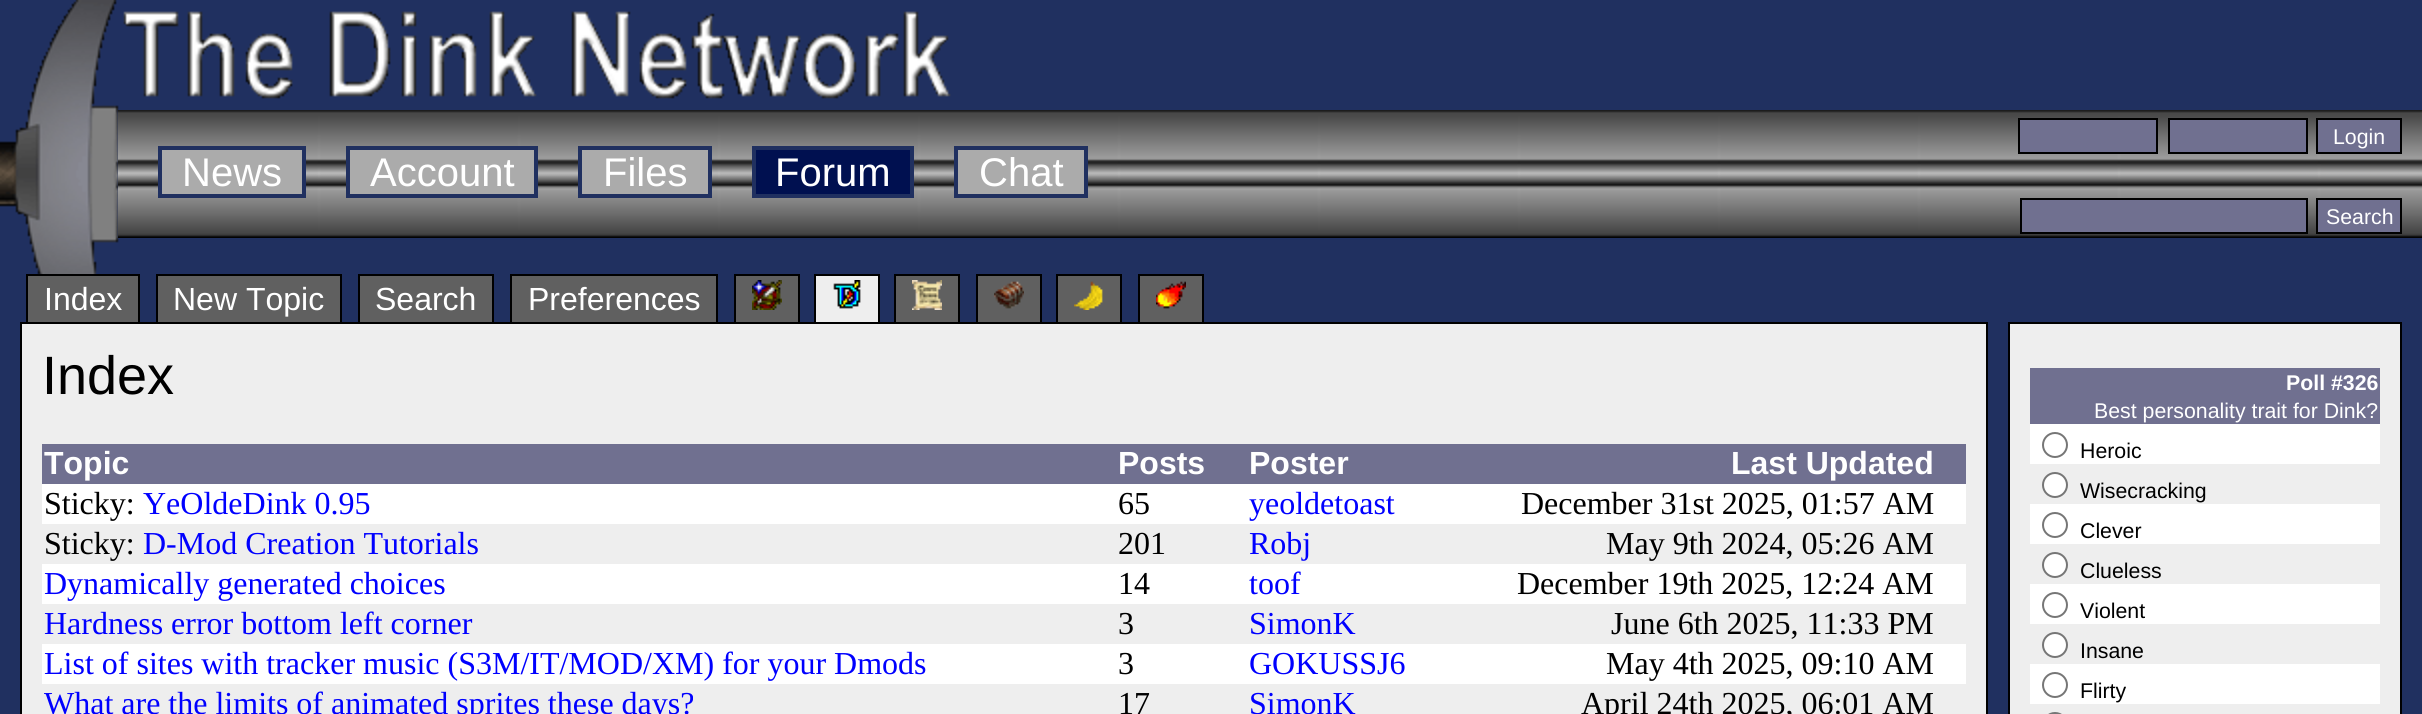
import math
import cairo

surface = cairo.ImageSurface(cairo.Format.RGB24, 2422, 714)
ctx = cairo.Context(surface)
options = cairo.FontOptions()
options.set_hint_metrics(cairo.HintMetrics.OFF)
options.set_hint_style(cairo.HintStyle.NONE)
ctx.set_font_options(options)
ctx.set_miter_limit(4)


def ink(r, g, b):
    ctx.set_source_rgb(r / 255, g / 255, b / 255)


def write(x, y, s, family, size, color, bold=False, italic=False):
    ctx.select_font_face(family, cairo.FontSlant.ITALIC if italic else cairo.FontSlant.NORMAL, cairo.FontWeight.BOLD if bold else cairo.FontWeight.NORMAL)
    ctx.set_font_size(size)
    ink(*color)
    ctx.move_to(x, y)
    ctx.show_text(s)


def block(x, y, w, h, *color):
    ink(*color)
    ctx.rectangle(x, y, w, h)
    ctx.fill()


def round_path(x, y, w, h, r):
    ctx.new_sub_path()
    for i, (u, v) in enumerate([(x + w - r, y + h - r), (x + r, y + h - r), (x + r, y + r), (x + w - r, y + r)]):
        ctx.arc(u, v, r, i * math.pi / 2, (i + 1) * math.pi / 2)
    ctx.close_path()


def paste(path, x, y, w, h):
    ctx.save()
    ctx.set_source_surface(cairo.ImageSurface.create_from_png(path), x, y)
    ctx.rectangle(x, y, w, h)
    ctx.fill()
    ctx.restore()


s1 = dict(family="Liberation Sans", size=21.3, color=(255, 255, 255))
s2 = dict(family="Liberation Sans", size=40, color=(255, 255, 255))
s3 = dict(family="Liberation Sans", size=32, color=(255, 255, 255))
s4 = dict(family="Liberation Sans", size=54, color=(0, 0, 0))
s5 = dict(family="Liberation Sans", size=32, color=(255, 255, 255), bold=True)
s6 = dict(family="Liberation Serif", size=32, color=(0, 0, 0))
s7 = dict(family="Liberation Serif", size=32, color=(0, 0, 255))
s8 = dict(family="Liberation Sans", size=21.3, color=(255, 255, 255), bold=True)
s9 = dict(family="Liberation Sans", size=21.3, color=(0, 0, 0))

ink(32, 48, 96)
ctx.paint()
paste("pic1.png", 0, 0, 119, 274)
paste("pic2.png", 123, 11, 828, 88)
paste("pic3.png", 118, 110, 2304, 128)
ink(112, 112, 144)
ctx.rectangle(2019, 119, 138, 34)
ctx.fill_preserve()
ink(0, 0, 0)
ctx.stroke()
ink(112, 112, 144)
ctx.rectangle(2169, 119, 138, 34)
ctx.fill_preserve()
ink(0, 0, 0)
ctx.stroke()
ink(112, 112, 144)
ctx.rectangle(2317, 119, 84, 34)
ctx.fill_preserve()
ink(0, 0, 0)
ctx.stroke()
write(2333, 144, "Login", **s1)
ink(171, 171, 171)
ctx.rectangle(160, 148, 144, 48)
ctx.fill_preserve()
ink(32, 48, 96)
ctx.set_line_width(4)
ctx.stroke()
write(182, 186, "News", **s2)
ink(171, 171, 171)
ctx.rectangle(348, 148, 188, 48)
ctx.fill_preserve()
ink(32, 48, 96)
ctx.stroke()
write(370, 186, "Account", **s2)
ink(171, 171, 171)
ctx.rectangle(580, 148, 130, 48)
ctx.fill_preserve()
ink(32, 48, 96)
ctx.stroke()
write(603, 186, "Files", **s2)
ink(0, 16, 80)
ctx.rectangle(754, 148, 158, 48)
ctx.fill_preserve()
ink(32, 48, 96)
ctx.stroke()
write(775, 186, "Forum", **s2)
ink(171, 171, 171)
ctx.rectangle(956, 148, 130, 48)
ctx.fill_preserve()
ink(32, 48, 96)
ctx.stroke()
write(979, 186, "Chat", **s2)
ink(112, 112, 144)
ctx.rectangle(2021, 199, 286, 34)
ctx.fill_preserve()
ink(0, 0, 0)
ctx.set_line_width(2)
ctx.stroke()
ink(112, 112, 144)
ctx.rectangle(2317, 199, 84, 34)
ctx.fill_preserve()
ink(0, 0, 0)
ctx.stroke()
write(2326, 224, "Search", **s1)
block(734, 274, 66, 2, 0, 0, 0)
block(734, 274, 2, 48, 0, 0, 0)
block(798, 274, 2, 48, 0, 0, 0)
block(814, 274, 66, 2, 0, 0, 0)
block(814, 274, 2, 48, 0, 0, 0)
block(878, 274, 2, 48, 0, 0, 0)
block(894, 274, 66, 2, 0, 0, 0)
block(894, 274, 2, 48, 0, 0, 0)
block(958, 274, 2, 48, 0, 0, 0)
block(976, 274, 66, 2, 0, 0, 0)
block(976, 274, 2, 48, 0, 0, 0)
block(1040, 274, 2, 48, 0, 0, 0)
block(1056, 274, 66, 2, 0, 0, 0)
block(1056, 274, 2, 48, 0, 0, 0)
block(1120, 274, 2, 48, 0, 0, 0)
block(1138, 274, 66, 2, 0, 0, 0)
block(736, 276, 62, 46, 96, 96, 96)
block(816, 276, 62, 46, 238, 238, 238)
block(896, 276, 62, 46, 96, 96, 96)
block(978, 276, 62, 46, 96, 96, 96)
block(1058, 276, 62, 46, 96, 96, 96)
block(1138, 274, 2, 48, 0, 0, 0)
block(1140, 276, 62, 46, 96, 96, 96)
block(1202, 274, 2, 48, 0, 0, 0)
block(28, 276, 110, 46, 96, 96, 96)
write(44, 310, "Index", **s3)
block(26, 274, 114, 2, 0, 0, 0)
block(138, 274, 2, 48, 0, 0, 0)
block(26, 274, 2, 48, 0, 0, 0)
block(158, 276, 182, 46, 96, 96, 96)
write(173, 310, "New Topic", **s3)
block(156, 274, 186, 2, 0, 0, 0)
block(340, 274, 2, 48, 0, 0, 0)
block(156, 274, 2, 48, 0, 0, 0)
block(360, 276, 132, 46, 96, 96, 96)
write(375, 310, "Search", **s3)
block(358, 274, 136, 2, 0, 0, 0)
block(492, 274, 2, 48, 0, 0, 0)
block(358, 274, 2, 48, 0, 0, 0)
block(512, 276, 204, 46, 96, 96, 96)
write(528, 310, "Preferences", **s3)
block(510, 274, 208, 2, 0, 0, 0)
block(716, 274, 2, 48, 0, 0, 0)
block(510, 274, 2, 48, 0, 0, 0)
paste("pic4.png", 752, 280, 30, 30)
paste("pic5.png", 833, 280, 28, 29)
paste("pic6.png", 912, 280, 30, 30)
paste("pic7.png", 994, 281, 30, 28)
paste("pic8.png", 1074, 281, 29, 29)
paste("pic9.png", 1156, 281, 30, 28)
ink(238, 238, 238)
ctx.rectangle(21, 323, 1966, 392)
ctx.fill_preserve()
ink(0, 0, 0)
ctx.stroke()
write(42, 394, "Index", **s4)
block(42, 444, 1924, 40, 112, 112, 144)
write(44, 474, "Topic", **s5)
write(1118, 474, "Posts", **s5)
write(1249, 474, "Poster", **s5)
write(1731, 474, "Last Updated", **s5)
block(42, 484, 1924, 40, 255, 255, 255)
write(44, 514, "Sticky:", **s6)
write(143, 514, "YeOldeDink 0.95", **s7)
write(1118, 514, "65", **s6)
write(1249, 514, "yeoldetoast", **s7)
write(1521, 514, "December 31st 2025, 01:57 AM", **s6)
write(44, 554, "Sticky:", **s6)
write(143, 554, "D-Mod Creation Tutorials", **s7)
write(1118, 554, "201", **s6)
write(1249, 554, "Robj", **s7)
write(1606, 554, "May 9th 2024, 05:26 AM", **s6)
block(42, 564, 1924, 40, 255, 255, 255)
write(44, 594, "Dynamically generated choices", **s7)
write(1118, 594, "14", **s6)
write(1249, 594, "toof", **s7)
write(1517, 594, "December 19th 2025, 12:24 AM", **s6)
write(44, 634, "Hardness error bottom left corner", **s7)
write(1118, 634, "3", **s6)
write(1249, 634, "SimonK", **s7)
write(1611, 634, "June 6th 2025, 11:33 PM", **s6)
block(42, 644, 1924, 40, 255, 255, 255)
write(44, 674, "List of sites with tracker music (S3M/IT/MOD/XM) for your Dmods", **s7)
write(1118, 674, "3", **s6)
write(1249, 674, "GOKUSSJ6", **s7)
write(1606, 674, "May 4th 2025, 09:10 AM", **s6)
write(44, 714, "What are the limits of animated sprites these days?", **s7)
write(1118, 714, "17", **s6)
write(1249, 714, "SimonK", **s7)
write(1581, 714, "April 24th 2025, 06:01 AM", **s6)
ink(238, 238, 238)
ctx.rectangle(2009, 323, 392, 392)
ctx.fill_preserve()
ink(0, 0, 0)
ctx.stroke()
block(2030, 368, 350, 56, 112, 112, 144)
write(2286, 390, "Poll #326", **s8)
write(2094, 418, "Best personality trait for Dink?", **s1)
block(2030, 424, 350, 40, 255, 255, 255)
ctx.new_path()
ctx.arc(2055, 445, 12, 0, 2 * math.pi)
ink(118, 118, 118)
ctx.stroke()
write(2080, 458, "Heroic", **s9)
ink(255, 255, 255)
ctx.new_path()
ctx.arc(2055, 485, 12, 0, 2 * math.pi)
ctx.fill_preserve()
ink(118, 118, 118)
ctx.stroke()
write(2080, 498, "Wisecracking", **s9)
block(2030, 504, 350, 40, 255, 255, 255)
ctx.new_path()
ctx.arc(2055, 525, 12, 0, 2 * math.pi)
ink(118, 118, 118)
ctx.stroke()
write(2080, 538, "Clever", **s9)
ink(255, 255, 255)
ctx.new_path()
ctx.arc(2055, 565, 12, 0, 2 * math.pi)
ctx.fill_preserve()
ink(118, 118, 118)
ctx.stroke()
write(2080, 578, "Clueless", **s9)
block(2030, 584, 350, 40, 255, 255, 255)
ctx.new_path()
ctx.arc(2055, 605, 12, 0, 2 * math.pi)
ink(118, 118, 118)
ctx.stroke()
write(2080, 618, "Violent", **s9)
ink(255, 255, 255)
ctx.new_path()
ctx.arc(2055, 645, 12, 0, 2 * math.pi)
ctx.fill_preserve()
ink(118, 118, 118)
ctx.stroke()
write(2080, 658, "Insane", **s9)
block(2030, 664, 350, 40, 255, 255, 255)
ctx.new_path()
ctx.arc(2055, 685, 12, 0, 2 * math.pi)
ink(118, 118, 118)
ctx.stroke()
write(2080, 698, "Flirty", **s9)
round_path(2043, 713, 24, 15, 12)
ink(118, 118, 118)
ctx.stroke()
surface.write_to_png("screenshot.png")
